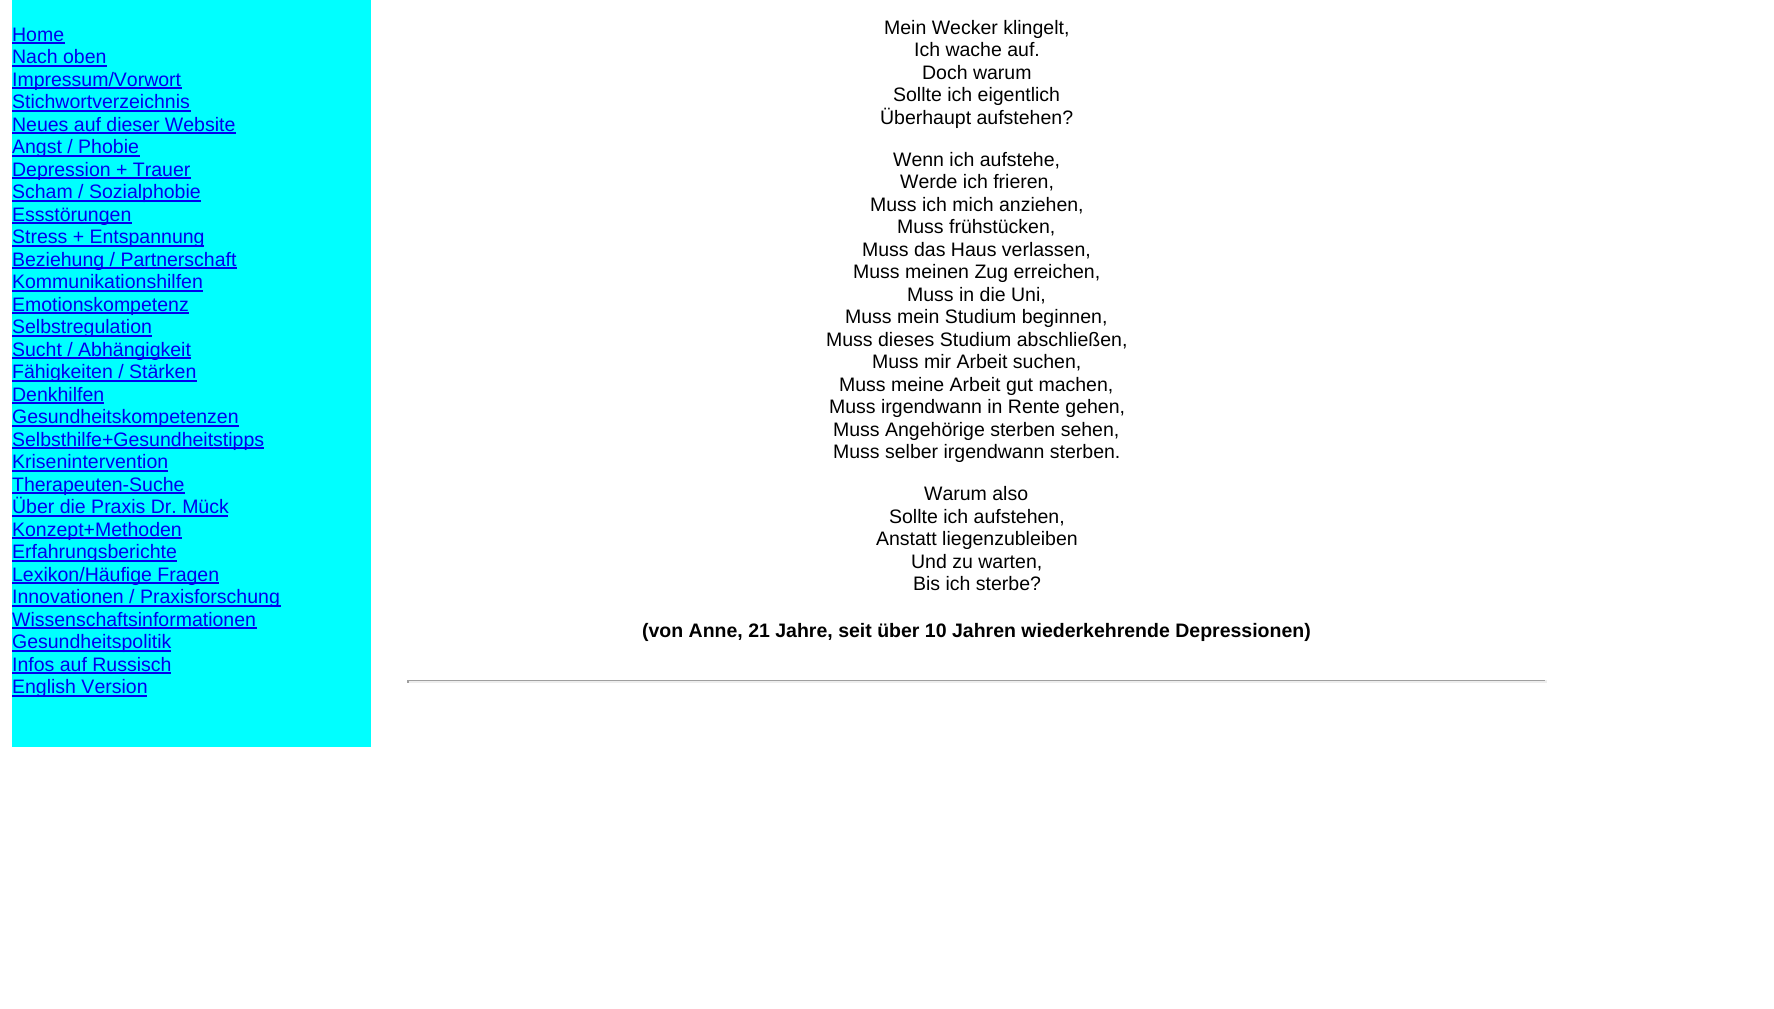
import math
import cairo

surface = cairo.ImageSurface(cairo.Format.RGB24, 1774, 1009)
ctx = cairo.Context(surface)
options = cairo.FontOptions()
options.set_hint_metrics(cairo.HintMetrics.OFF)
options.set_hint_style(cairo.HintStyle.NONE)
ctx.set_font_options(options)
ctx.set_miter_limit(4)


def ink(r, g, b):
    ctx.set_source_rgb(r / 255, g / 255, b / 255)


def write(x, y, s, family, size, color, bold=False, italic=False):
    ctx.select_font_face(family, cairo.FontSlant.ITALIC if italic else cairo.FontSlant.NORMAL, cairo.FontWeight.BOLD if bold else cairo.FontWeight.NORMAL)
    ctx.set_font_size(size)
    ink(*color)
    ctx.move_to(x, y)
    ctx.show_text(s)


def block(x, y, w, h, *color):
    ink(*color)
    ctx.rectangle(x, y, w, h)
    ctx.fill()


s1 = dict(family="Liberation Sans", size=19.5, color=(0, 0, 238))
s2 = dict(family="Liberation Sans", size=19.5, color=(0, 0, 0))
s3 = dict(family="Liberation Sans", size=19.5, color=(0, 0, 0), bold=True)

ink(255, 255, 255)
ctx.paint()
block(12, 0, 359, 747, 0, 255, 255)
write(12, 41, "Home", **s1)
block(12, 42, 53, 2, 0, 0, 238)
write(12, 63, "Nach oben", **s1)
block(12, 65, 95, 2, 0, 0, 238)
block(12, 87, 170, 2, 0, 0, 238)
write(12, 86, "Impressum/Vorwort", **s1)
write(12, 108, "Stichwortverzeichnis", **s1)
block(12, 110, 179, 2, 0, 0, 238)
write(12, 131, "Neues auf dieser Website", **s1)
block(12, 132, 224, 2, 0, 0, 238)
block(12, 155, 128, 2, 0, 0, 238)
write(12, 153, "Angst / Phobie", **s1)
block(12, 177, 179, 2, 0, 0, 238)
write(12, 176, "Depression + Trauer", **s1)
block(12, 200, 189, 2, 0, 0, 238)
write(12, 198, "Scham / Sozialphobie", **s1)
block(12, 222, 120, 2, 0, 0, 238)
write(12, 221, "Essstörungen", **s1)
block(12, 245, 192, 2, 0, 0, 238)
write(12, 243, "Stress + Entspannung", **s1)
block(12, 267, 225, 2, 0, 0, 238)
write(12, 266, "Beziehung / Partnerschaft", **s1)
write(12, 288, "Kommunikationshilfen", **s1)
block(12, 290, 191, 2, 0, 0, 238)
block(12, 312, 177, 2, 0, 0, 238)
write(12, 311, "Emotionskompetenz", **s1)
block(12, 335, 140, 2, 0, 0, 238)
write(12, 333, "Selbstregulation", **s1)
block(12, 357, 179, 2, 0, 0, 238)
write(12, 356, "Sucht / Abhängigkeit", **s1)
block(12, 380, 185, 2, 0, 0, 238)
write(12, 378, "Fähigkeiten / Stärken", **s1)
write(12, 401, "Denkhilfen", **s1)
block(12, 402, 92, 2, 0, 0, 238)
block(12, 425, 227, 2, 0, 0, 238)
write(12, 423, "Gesundheitskompetenzen", **s1)
block(12, 447, 252, 2, 0, 0, 238)
write(12, 446, "Selbsthilfe+Gesundheitstipps", **s1)
write(12, 468, "Krisenintervention", **s1)
block(12, 470, 156, 2, 0, 0, 238)
block(12, 492, 173, 2, 0, 0, 238)
write(12, 491, "Therapeuten-Suche", **s1)
write(12, 513, "Über die Praxis Dr. Mück", **s1)
block(12, 515, 216, 2, 0, 0, 238)
block(12, 537, 170, 2, 0, 0, 238)
write(12, 536, "Konzept+Methoden", **s1)
block(12, 560, 165, 2, 0, 0, 238)
write(12, 558, "Erfahrungsberichte", **s1)
block(12, 582, 207, 2, 0, 0, 238)
write(12, 581, "Lexikon/Häufige Fragen", **s1)
block(12, 605, 269, 2, 0, 0, 238)
write(12, 603, "Innovationen / Praxisforschung", **s1)
write(12, 626, "Wissenschaftsinformationen", **s1)
block(12, 627, 245, 2, 0, 0, 238)
block(12, 650, 159, 2, 0, 0, 238)
write(12, 648, "Gesundheitspolitik", **s1)
write(12, 671, "Infos auf Russisch", **s1)
block(12, 672, 159, 2, 0, 0, 238)
block(12, 695, 135, 2, 0, 0, 238)
write(12, 693, "English Version", **s1)
write(884, 34, "Mein Wecker klingelt,", **s2)
write(914, 56, "Ich wache auf.", **s2)
write(922, 79, "Doch warum", **s2)
write(893, 101, "Sollte ich eigentlich", **s2)
write(880, 124, "Überhaupt aufstehen?", **s2)
write(893, 166, "Wenn ich aufstehe,", **s2)
write(900, 188, "Werde ich frieren,", **s2)
write(870, 211, "Muss ich mich anziehen,", **s2)
write(897, 233, "Muss frühstücken,", **s2)
write(862, 256, "Muss das Haus verlassen,", **s2)
write(853, 278, "Muss meinen Zug erreichen,", **s2)
write(907, 301, "Muss in die Uni,", **s2)
write(845, 323, "Muss mein Studium beginnen,", **s2)
write(826, 346, "Muss dieses Studium abschließen,", **s2)
write(872, 368, "Muss mir Arbeit suchen,", **s2)
write(839, 391, "Muss meine Arbeit gut machen,", **s2)
write(829, 413, "Muss irgendwann in Rente gehen,", **s2)
write(833, 436, "Muss Angehörige sterben sehen,", **s2)
write(833, 458, "Muss selber irgendwann sterben.", **s2)
write(924, 500, "Warum also", **s2)
write(889, 523, "Sollte ich aufstehen,", **s2)
write(876, 545, "Anstatt liegenzubleiben", **s2)
write(911, 568, "Und zu warten,", **s2)
write(913, 590, "Bis ich sterbe?", **s2)
write(642, 637, "(von Anne, 21 Jahre, seit über 10 Jahren wiederkehrende Depressionen)", **s3)
block(407, 680, 1140, 1, 159, 159, 159)
block(1545, 680, 2, 3, 238, 238, 238)
block(407, 681, 1140, 2, 238, 238, 238)
block(407, 680, 2, 3, 159, 159, 159)
surface.write_to_png("screenshot.png")
